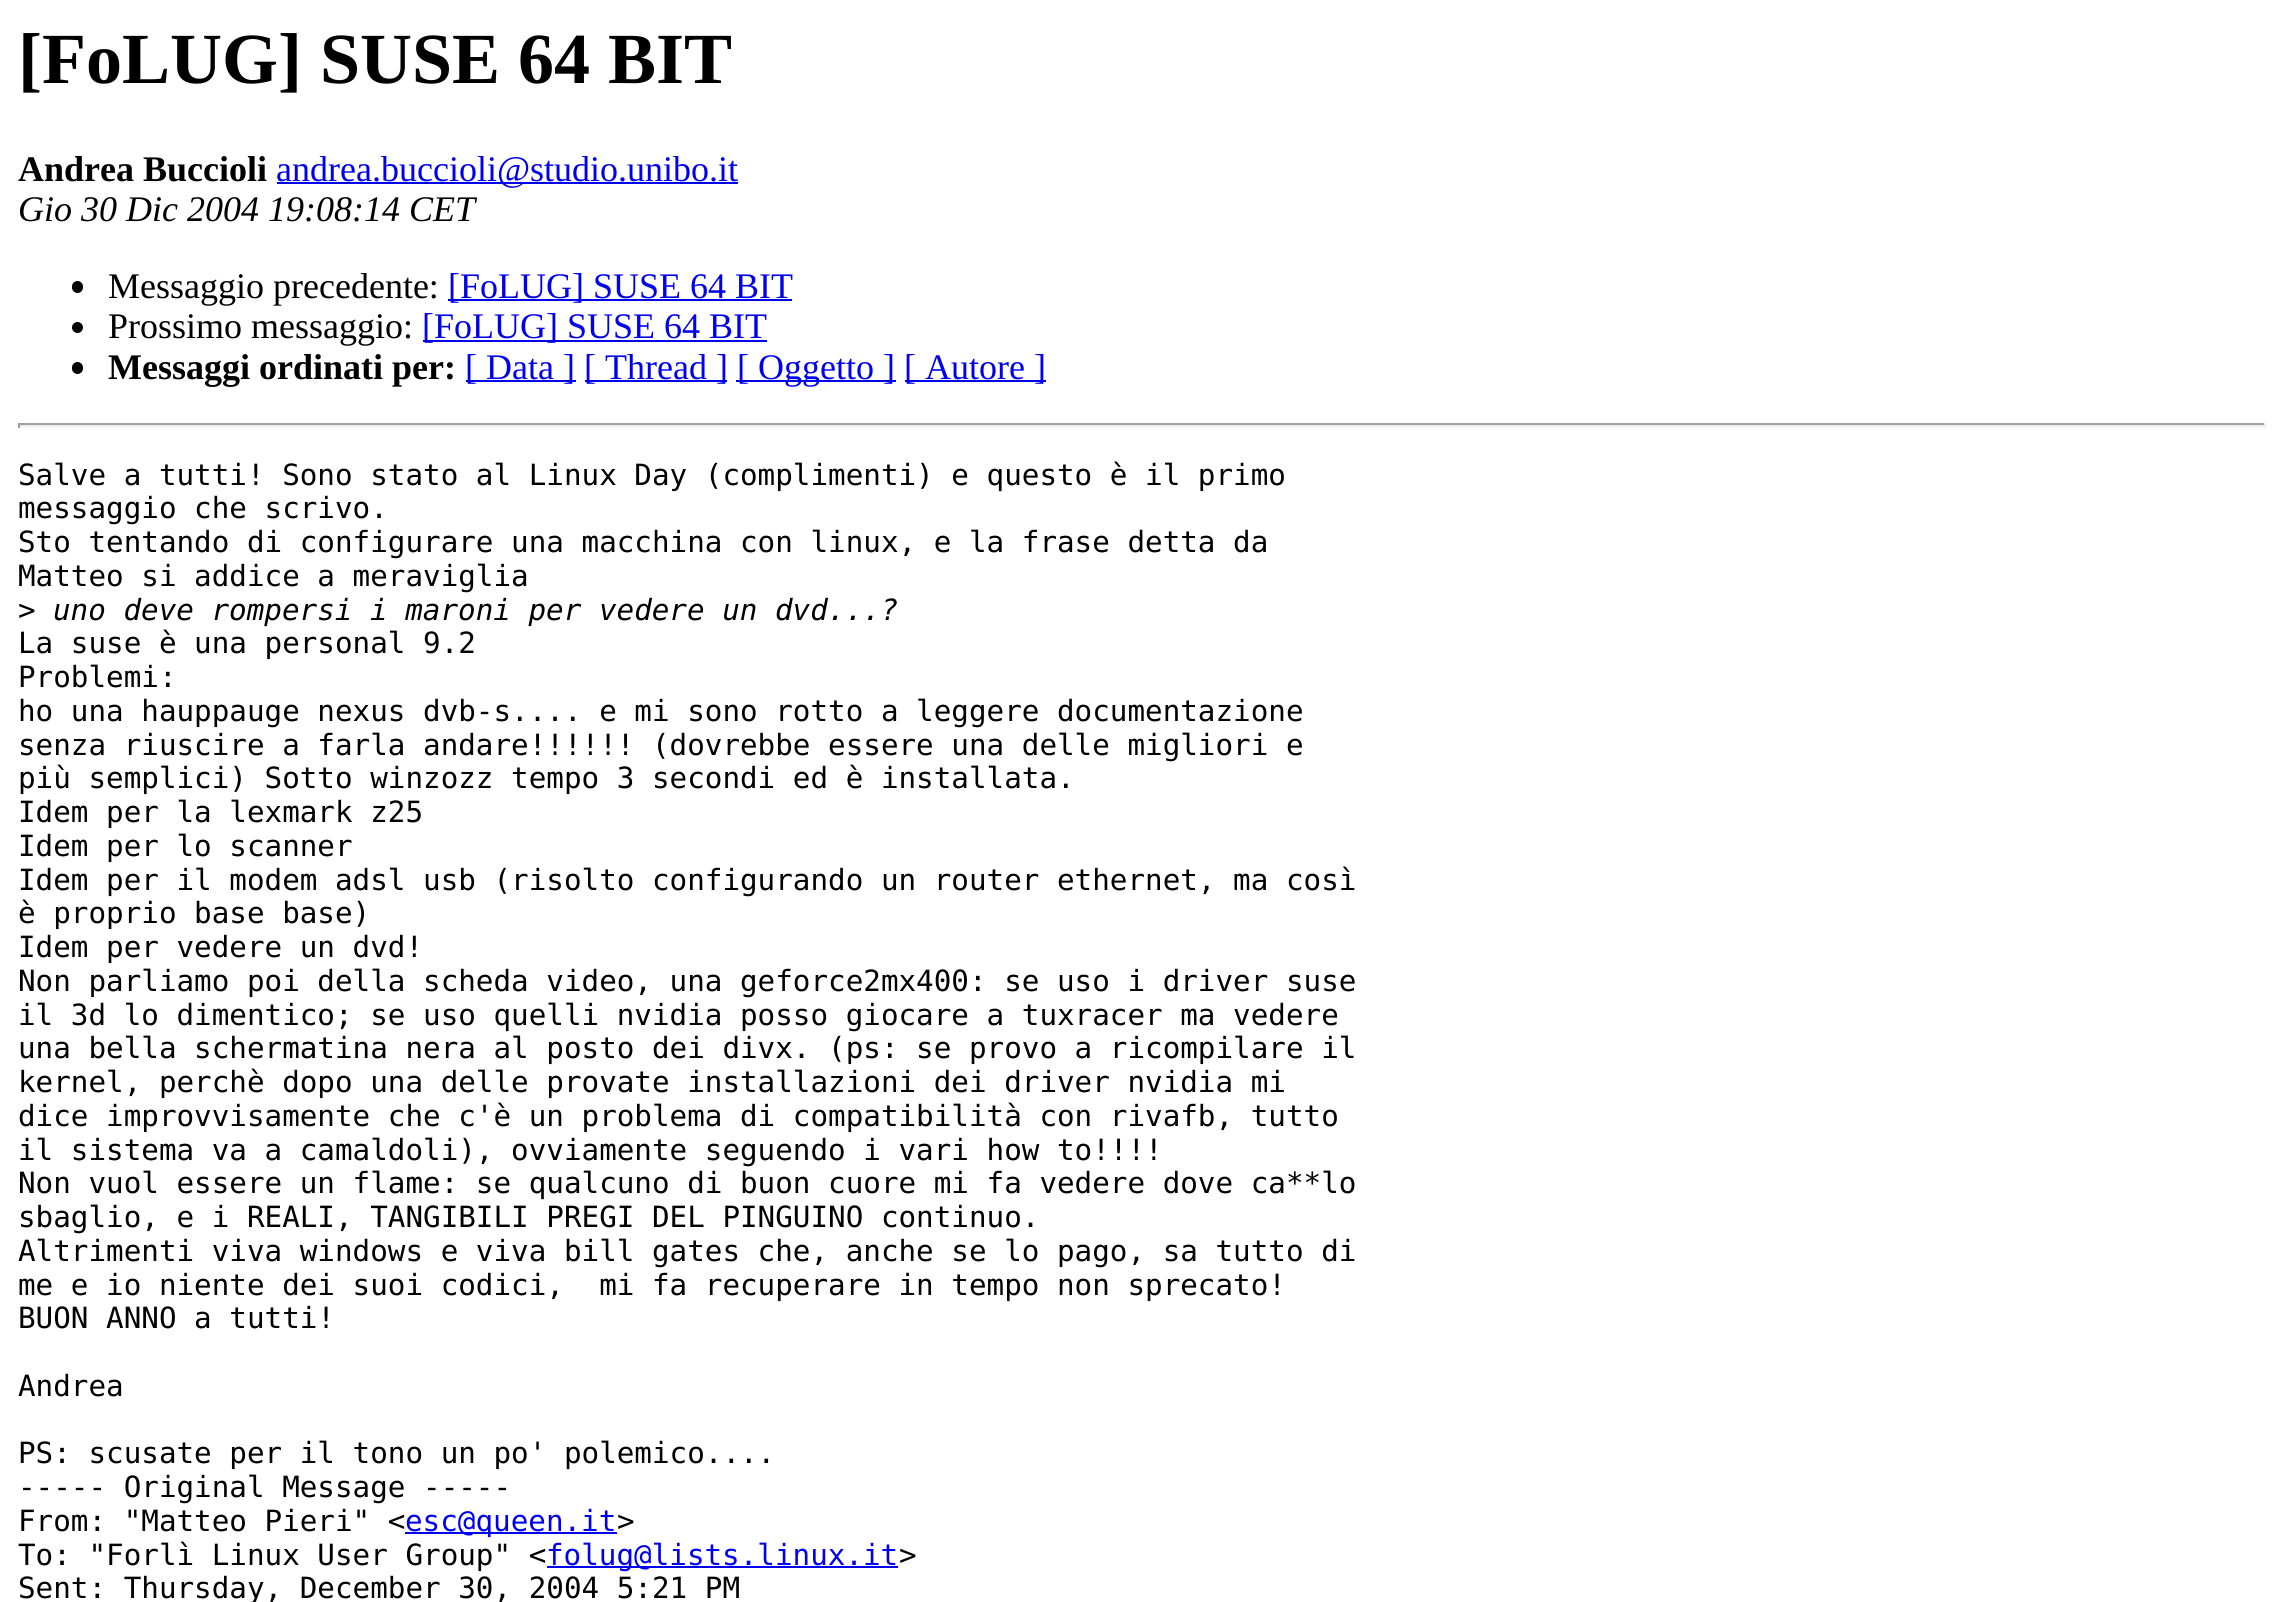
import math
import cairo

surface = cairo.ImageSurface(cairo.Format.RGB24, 2283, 1602)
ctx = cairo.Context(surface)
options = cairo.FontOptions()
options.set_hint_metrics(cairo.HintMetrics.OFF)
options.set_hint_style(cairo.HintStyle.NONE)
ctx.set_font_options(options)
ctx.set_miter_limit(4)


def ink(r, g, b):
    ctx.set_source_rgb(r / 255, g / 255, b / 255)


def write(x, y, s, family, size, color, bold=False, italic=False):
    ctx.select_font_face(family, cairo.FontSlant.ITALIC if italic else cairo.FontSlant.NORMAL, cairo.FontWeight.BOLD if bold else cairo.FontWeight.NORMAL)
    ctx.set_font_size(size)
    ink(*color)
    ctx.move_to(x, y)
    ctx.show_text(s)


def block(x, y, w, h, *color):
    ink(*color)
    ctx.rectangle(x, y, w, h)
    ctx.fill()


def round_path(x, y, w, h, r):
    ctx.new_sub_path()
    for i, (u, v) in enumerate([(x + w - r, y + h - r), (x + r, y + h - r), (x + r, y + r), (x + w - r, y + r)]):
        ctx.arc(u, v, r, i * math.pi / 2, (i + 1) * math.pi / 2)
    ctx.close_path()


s1 = dict(family="Liberation Serif", size=72, color=(0, 0, 0), bold=True)
s2 = dict(family="Liberation Serif", size=36, color=(0, 0, 0), bold=True)
s3 = dict(family="Liberation Serif", size=36, color=(0, 0, 238))
s4 = dict(family="Liberation Serif", size=36, color=(0, 0, 0), italic=True)
s5 = dict(family="Liberation Serif", size=36, color=(0, 0, 0))
s6 = dict(family="DejaVu Sans Mono", size=29.25, color=(0, 0, 0))
s7 = dict(family="DejaVu Sans Mono", size=29.25, color=(0, 0, 0), italic=True)
s8 = dict(family="DejaVu Sans Mono", size=29.25, color=(0, 0, 238))

ink(255, 255, 255)
ctx.paint()
write(18, 83, "[FoLUG] SUSE 64 BIT", **s1)
write(18, 181, "Andrea Buccioli", **s2)
block(277, 182, 461, 2, 0, 0, 238)
write(276, 181, "andrea.buccioli@studio.unibo.it", **s3)
write(18, 221, "Gio 30 Dic 2004 19:08:14 CET", **s4)
round_path(72, 281, 11, 12, 5.5)
ctx.fill()
write(108, 298, "Messaggio precedente:", **s5)
block(448, 299, 344, 2, 0, 0, 238)
write(448, 298, "[FoLUG] SUSE 64 BIT", **s3)
ink(0, 0, 0)
ctx.new_path()
ctx.arc(77.5, 327.5, 5.5, 0, 2 * math.pi)
ctx.fill()
write(108, 338, "Prossimo messaggio:", **s5)
block(423, 340, 344, 2, 0, 0, 238)
write(422, 338, "[FoLUG] SUSE 64 BIT", **s3)
ink(0, 0, 0)
round_path(72, 362, 11, 12, 5.5)
ctx.fill()
write(108, 379, "Messaggi ordinati per:", **s2)
block(466, 380, 110, 2, 0, 0, 238)
write(465, 379, "[ Data ]", **s3)
block(585, 380, 142, 2, 0, 0, 238)
write(584, 379, "[ Thread ]", **s3)
block(736, 380, 160, 2, 0, 0, 238)
write(737, 379, "[ Oggetto ]", **s3)
block(905, 380, 141, 2, 0, 0, 238)
write(904, 379, "[ Autore ]", **s3)
block(18, 423, 2248, 2, 159, 159, 159)
block(2264, 423, 2, 5, 238, 238, 238)
block(18, 425, 2248, 2, 238, 238, 238)
block(18, 423, 2, 5, 159, 159, 159)
write(18, 485, "Salve a tutti! Sono stato al Linux Day (complimenti) e questo è il primo", **s6)
write(18, 518, "messaggio che scrivo.", **s6)
write(18, 552, "Sto tentando di configurare una macchina con linux, e la frase detta da", **s6)
write(18, 586, "Matteo si addice a meraviglia", **s6)
write(18, 620, ">", **s6)
write(53, 620, "uno deve rompersi i maroni per vedere un dvd...?", **s7)
write(18, 653, "La suse è una personal 9.2", **s6)
write(18, 687, "Problemi:", **s6)
write(18, 721, "ho una hauppauge nexus dvb-s.... e mi sono rotto a leggere documentazione", **s6)
write(18, 755, "senza riuscire a farla andare!!!!!! (dovrebbe essere una delle migliori e", **s6)
write(18, 788, "più semplici) Sotto winzozz tempo 3 secondi ed è installata.", **s6)
write(18, 822, "Idem per la lexmark z25", **s6)
write(18, 856, "Idem per lo scanner", **s6)
write(18, 890, "Idem per il modem adsl usb (risolto configurando un router ethernet, ma così", **s6)
write(18, 923, "è proprio base base)", **s6)
write(18, 957, "Idem per vedere un dvd!", **s6)
write(18, 991, "Non parliamo poi della scheda video, una geforce2mx400: se uso i driver suse", **s6)
write(18, 1025, "il 3d lo dimentico; se uso quelli nvidia posso giocare a tuxracer ma vedere", **s6)
write(18, 1058, "una bella schermatina nera al posto dei divx. (ps: se provo a ricompilare il", **s6)
write(18, 1092, "kernel, perchè dopo una delle provate installazioni dei driver nvidia mi", **s6)
write(18, 1126, "dice improvvisamente che c'è un problema di compatibilità con rivafb, tutto", **s6)
write(18, 1160, "il sistema va a camaldoli), ovviamente seguendo i vari how to!!!!", **s6)
write(18, 1193, "Non vuol essere un flame: se qualcuno di buon cuore mi fa vedere dove ca**lo", **s6)
write(18, 1227, "sbaglio, e i REALI, TANGIBILI PREGI DEL PINGUINO continuo.", **s6)
write(18, 1261, "Altrimenti viva windows e viva bill gates che, anche se lo pago, sa tutto di", **s6)
write(18, 1295, "me e io niente dei suoi codici,  mi fa recuperare in tempo non sprecato!", **s6)
write(18, 1328, "BUON ANNO a tutti!", **s6)
write(18, 1396, "Andrea", **s6)
write(18, 1463, "PS: scusate per il tono un po' polemico....", **s6)
write(18, 1497, "----- Original Message -----", **s6)
write(18, 1531, "From: \"Matteo Pieri\" <", **s6)
block(405, 1532, 212, 2, 0, 0, 238)
write(405, 1531, "esc@queen.it", **s8)
write(617, 1531, ">", **s6)
write(18, 1565, "To: \"Forlì Linux User Group\" <", **s6)
block(547, 1566, 351, 2, 0, 0, 238)
write(546, 1565, "folug@lists.linux.it", **s8)
write(899, 1565, ">", **s6)
write(18, 1598, "Sent: Thursday, December 30, 2004 5:21 PM", **s6)
surface.write_to_png("screenshot.png")
